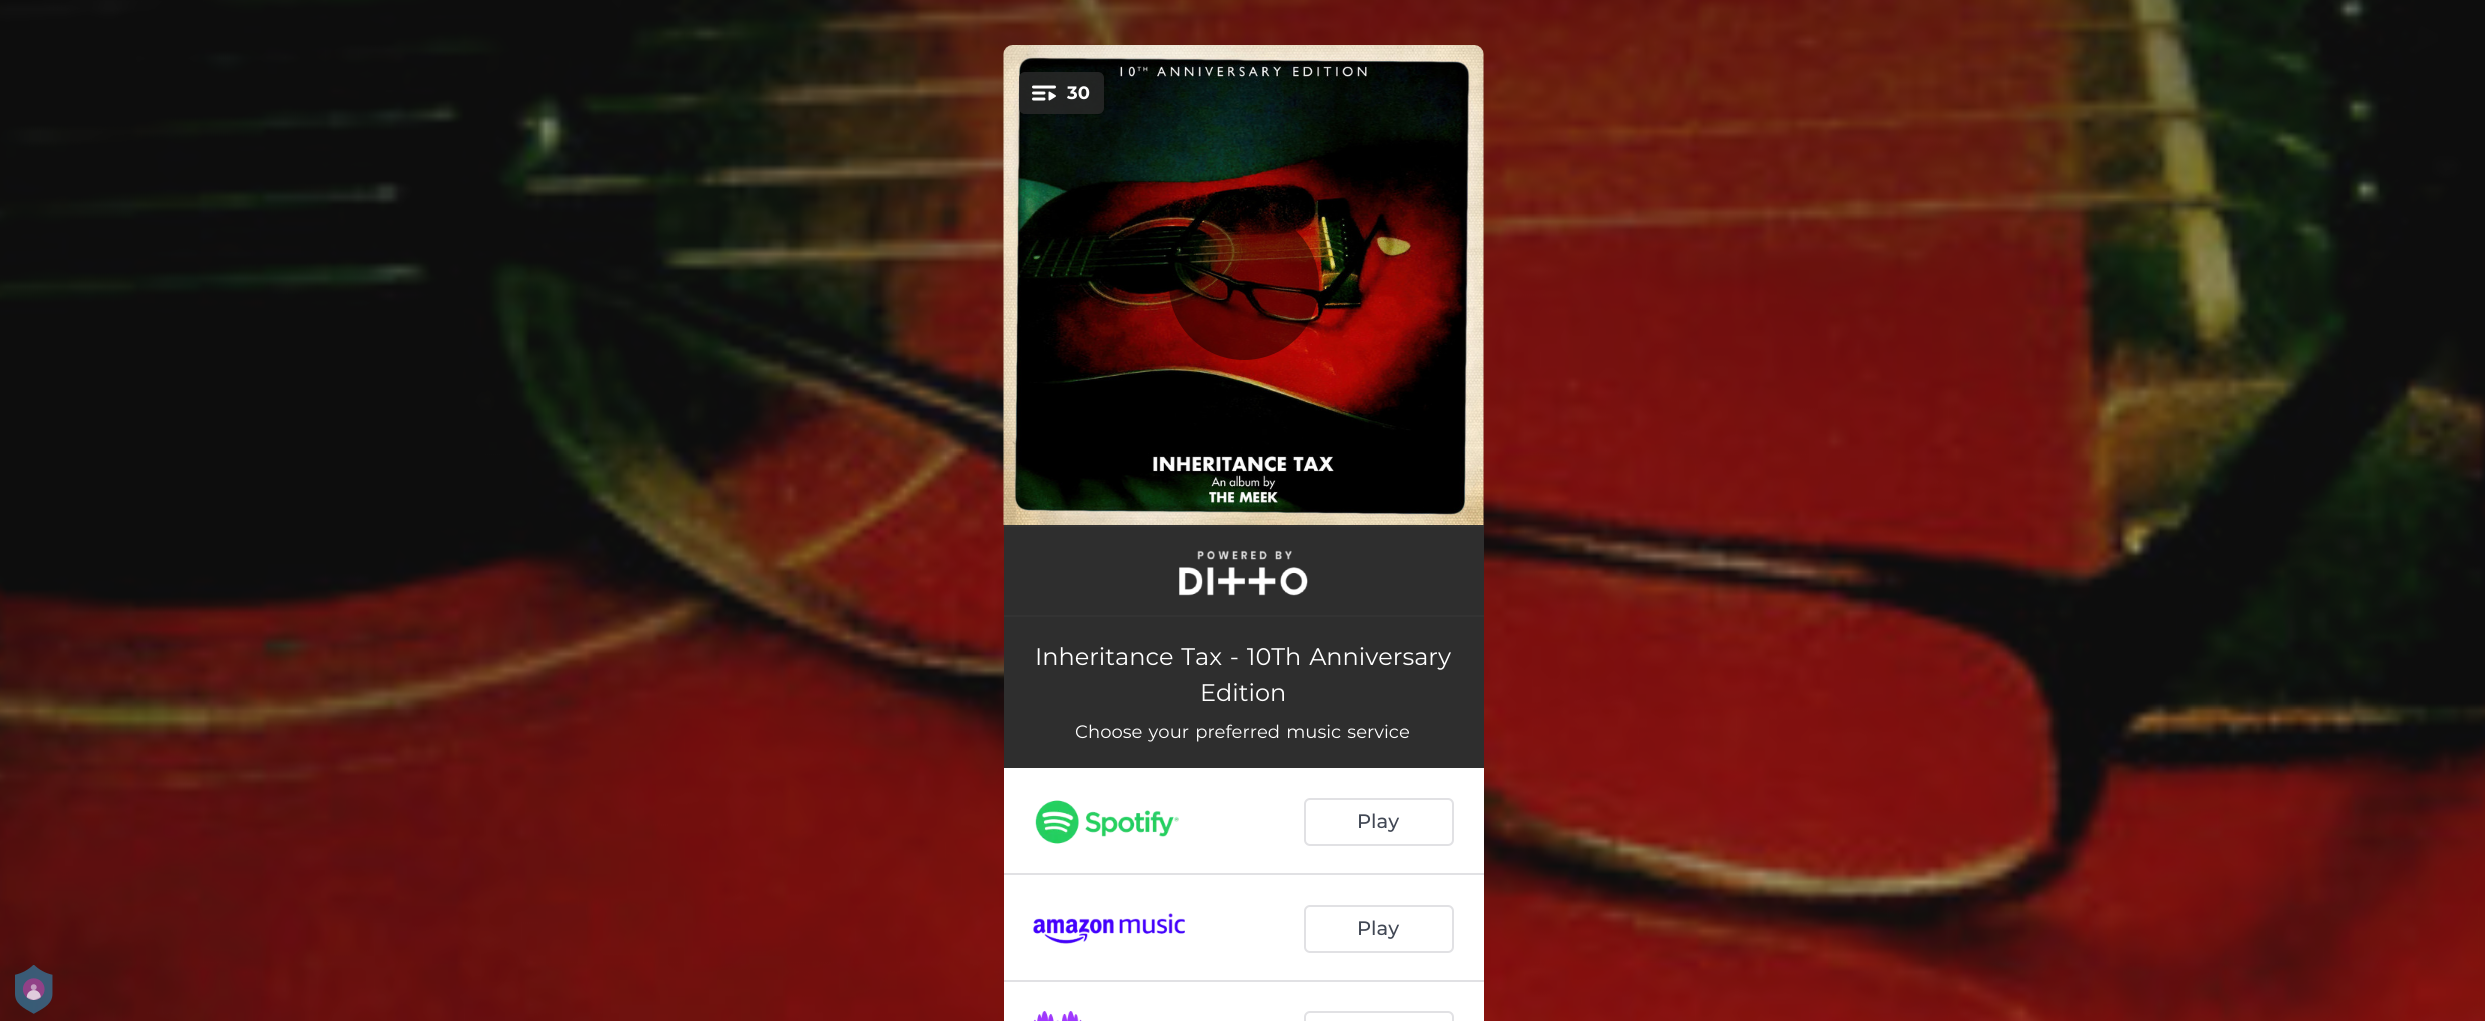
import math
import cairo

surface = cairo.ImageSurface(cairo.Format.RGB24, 2485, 1021)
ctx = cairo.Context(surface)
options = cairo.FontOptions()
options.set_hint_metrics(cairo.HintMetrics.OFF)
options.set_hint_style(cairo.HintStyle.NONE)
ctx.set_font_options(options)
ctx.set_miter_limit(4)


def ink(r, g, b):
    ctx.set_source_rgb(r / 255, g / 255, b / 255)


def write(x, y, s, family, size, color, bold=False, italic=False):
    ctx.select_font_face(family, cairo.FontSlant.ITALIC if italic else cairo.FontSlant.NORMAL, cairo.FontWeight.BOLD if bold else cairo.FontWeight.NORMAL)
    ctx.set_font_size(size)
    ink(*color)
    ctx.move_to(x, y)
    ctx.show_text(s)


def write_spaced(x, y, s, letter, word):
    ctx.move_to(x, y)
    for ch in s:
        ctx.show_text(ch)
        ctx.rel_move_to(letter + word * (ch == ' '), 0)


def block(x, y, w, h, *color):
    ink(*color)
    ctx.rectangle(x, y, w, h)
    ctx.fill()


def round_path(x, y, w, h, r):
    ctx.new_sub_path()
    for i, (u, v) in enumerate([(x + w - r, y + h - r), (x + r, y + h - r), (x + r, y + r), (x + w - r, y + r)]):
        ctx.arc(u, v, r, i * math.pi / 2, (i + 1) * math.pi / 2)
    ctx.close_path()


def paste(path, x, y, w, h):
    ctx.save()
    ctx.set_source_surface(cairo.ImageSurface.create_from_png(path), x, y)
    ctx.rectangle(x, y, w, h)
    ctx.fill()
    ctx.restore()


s1 = dict(family="Montserrat", size=18, color=(255, 255, 255), bold=True)
s2 = dict(family="Montserrat", size=24, color=(255, 255, 255))
s3 = dict(family="Montserrat Medium", size=19.5, color=(65, 71, 84))

ink(255, 255, 255)
ctx.paint()
paste("pic1.png", 0, 0, 2485, 1021)
paste("pic2.png", 1003, 45, 481, 480)
ctx.set_source_rgba(0.157, 0.157, 0.157, 0.85)
round_path(1019, 72, 85, 42, 6)
ctx.fill()
paste("pic3.png", 1032, 85, 24, 16)
write(1067, 99, "30", **s1)
ctx.set_source_rgba(0, 0, 0, 0.45)
ctx.new_path()
ctx.arc(1244, 285, 75, 0, 2 * math.pi)
ctx.fill()
block(1004, 527, 480, 88, 46, 46, 46)
block(1004, 525, 480, 2, 51, 51, 51)
block(1004, 615, 480, 2, 51, 51, 51)
paste("pic4.png", 1179, 550, 129, 46)
block(1004, 617, 480, 151, 46, 46, 46)
ctx.select_font_face("Montserrat")
ctx.set_font_size(24)
ink(255, 255, 255)
write_spaced(1035, 665, "Inheritance Tax - 10Th Anniversary", 0, 1.5)
write(1200, 701, "Edition", **s2)
ctx.set_font_size(18)
write_spaced(1075, 738, "Choose your preferred music service", 0, 1.5)
block(1004, 768, 480, 253, 255, 255, 255)
block(1004, 873, 480, 2, 225, 225, 228)
paste("pic5.png", 1035, 800, 144, 44)
round_path(1305, 799, 148, 46, 5)
ctx.stroke()
write(1357, 828, "Play", **s3)
block(1004, 980, 480, 2, 225, 225, 228)
paste("pic6.png", 1033, 913, 152, 31)
round_path(1305, 906, 148, 46, 5)
ctx.stroke()
write(1357, 935, "Play", **s3)
paste("pic7.png", 1033, 1011, 49, 10)
round_path(1305, 1012, 148, 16, 5)
ink(225, 225, 228)
ctx.stroke()
paste("pic8.png", 15, 965, 38, 49)
surface.write_to_png("screenshot.png")
